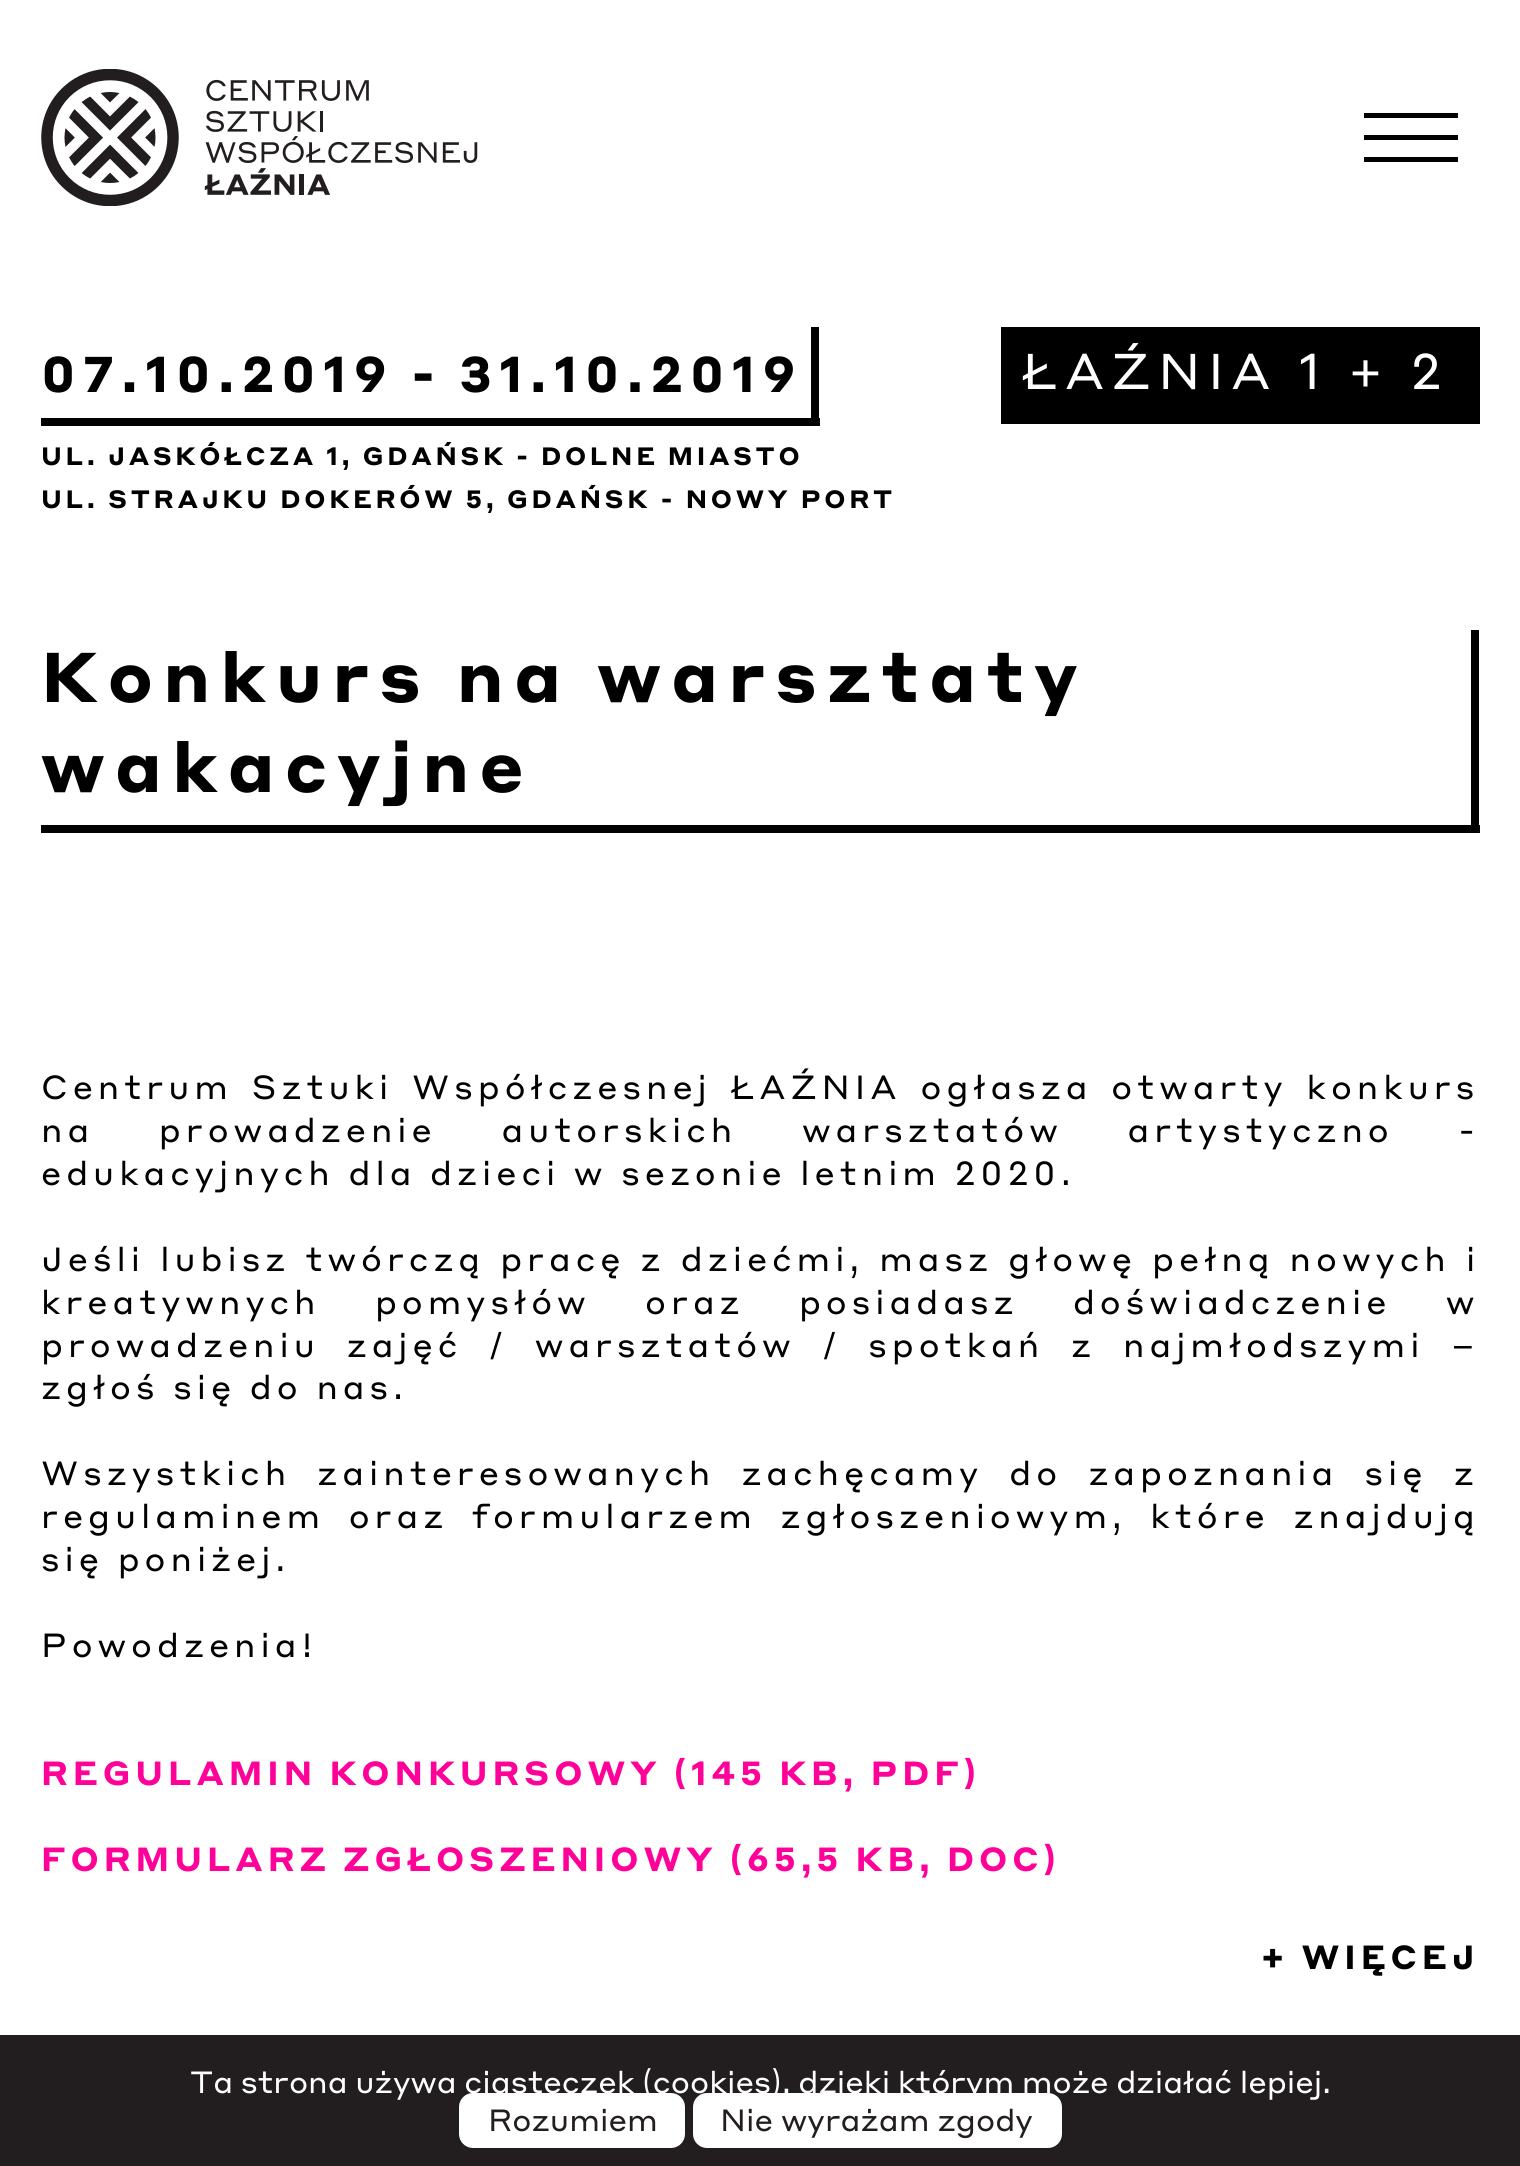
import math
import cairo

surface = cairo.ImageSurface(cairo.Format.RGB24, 1520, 2166)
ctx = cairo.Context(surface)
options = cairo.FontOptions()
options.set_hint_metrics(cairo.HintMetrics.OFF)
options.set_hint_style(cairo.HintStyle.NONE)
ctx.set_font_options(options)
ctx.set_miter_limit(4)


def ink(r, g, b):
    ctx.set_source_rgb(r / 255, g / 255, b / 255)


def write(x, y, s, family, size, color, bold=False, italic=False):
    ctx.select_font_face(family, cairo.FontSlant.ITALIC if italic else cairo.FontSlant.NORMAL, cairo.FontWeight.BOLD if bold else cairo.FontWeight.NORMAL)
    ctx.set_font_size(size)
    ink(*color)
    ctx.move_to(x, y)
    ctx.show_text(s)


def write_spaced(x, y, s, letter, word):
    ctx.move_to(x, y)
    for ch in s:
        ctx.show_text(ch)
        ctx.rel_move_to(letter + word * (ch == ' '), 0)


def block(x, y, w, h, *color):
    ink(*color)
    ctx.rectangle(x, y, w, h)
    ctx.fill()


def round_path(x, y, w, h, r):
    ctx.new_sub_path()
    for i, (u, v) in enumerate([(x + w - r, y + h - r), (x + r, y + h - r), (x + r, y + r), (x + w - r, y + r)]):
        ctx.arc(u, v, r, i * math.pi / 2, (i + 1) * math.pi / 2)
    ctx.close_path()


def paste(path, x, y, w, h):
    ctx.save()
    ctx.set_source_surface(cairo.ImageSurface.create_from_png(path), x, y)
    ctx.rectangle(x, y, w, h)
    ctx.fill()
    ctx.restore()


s1 = dict(family="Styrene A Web", size=30.25, color=(34, 30, 32))

ink(255, 255, 255)
ctx.paint()
paste("pic1.png", 41, 69, 437, 137)
block(1364, 113, 94, 5, 1, 1, 1)
block(1364, 135, 94, 5, 1, 1, 1)
block(1364, 157, 94, 5, 1, 1, 1)
block(811, 327, 8, 99, 0, 0, 0)
block(41, 418, 779, 8, 0, 0, 0)
ctx.select_font_face("Styrene A Web", cairo.FontSlant.NORMAL, cairo.FontWeight.BOLD)
ctx.set_font_size(49.5)
write_spaced(41, 392, "07.10.2019 - 31.10.2019", 7.4, -3)
block(1001, 327, 479, 97, 0, 0, 0)
ctx.select_font_face("Styrene A Web")
ink(255, 255, 255)
write_spaced(1022, 389, "ŁAŹNIA 1 + 2", 7.4, 0)
ctx.select_font_face("Styrene A Web", cairo.FontSlant.NORMAL, cairo.FontWeight.BOLD)
ctx.set_font_size(24.75)
ink(0, 0, 0)
write_spaced(41, 465, "UL. JASKÓŁCZA 1, GDAŃSK - DOLNE MIASTO", 3.7, -0.75)
write_spaced(41, 508, "UL. STRAJKU DOKERÓW 5, GDAŃSK - NOWY PORT", 3.7, -0.5)
block(1471, 630, 8, 203, 0, 0, 0)
block(41, 825, 1439, 8, 0, 0, 0)
ctx.set_font_size(69.25)
write_spaced(41, 702, "Konkurs na warsztaty", 10.4, -2)
write_spaced(41, 792, "wakacyjne", 10.4, 0)
ctx.select_font_face("Styrene A Web")
ctx.set_font_size(33)
write_spaced(41, 1099, "Centrum Sztuki Współczesnej ŁAŹNIA ogłasza otwarty konkurs", 4.95, 5.25)
write_spaced(41, 1142, "na prowadzenie autorskich warsztatów artystyczno -", 4.95, 51)
write_spaced(41, 1185, "edukacyjnych dla dzieci w sezonie letnim 2020.", 4.95, 0)
write_spaced(41, 1271, "Jeśli lubisz twórczą pracę z dziećmi, masz głowę pełną nowych i", 4.95, 1.5)
write_spaced(41, 1314, "kreatywnych pomysłów oraz posiadasz doświadczenie w", 4.95, 40.75)
write_spaced(41, 1357, "prowadzeniu zajęć / warsztatów / spotkań z najmłodszymi –", 4.95, 13.25)
write_spaced(41, 1399, "zgłoś się do nas.", 4.95, 0)
write_spaced(41, 1485, "Wszystkich zainteresowanych zachęcamy do zapoznania się z", 4.95, 12.5)
write_spaced(41, 1528, "regulaminem oraz formularzem zgłoszeniowym, które znajdują", 4.95, 10)
write_spaced(41, 1571, "się poniżej.", 4.95, 0)
write_spaced(41, 1657, "Powodzenia!", 4.95, 0)
ctx.select_font_face("Styrene A Web", cairo.FontSlant.NORMAL, cairo.FontWeight.BOLD)
ink(255, 0, 153)
write_spaced(41, 1785, "REGULAMIN KONKURSOWY (145 KB, PDF)", 4.95, -1)
write_spaced(41, 1871, "FORMULARZ ZGŁOSZENIOWY (65,5 KB, DOC)", 4.95, -1)
ink(0, 0, 0)
write_spaced(1261, 1969, "+ WIĘCEJ", 4.95, -1)
block(0, 2035, 1520, 131, 34, 30, 32)
ctx.select_font_face("Styrene A Web")
ctx.set_font_size(30.25)
ink(255, 255, 255)
write_spaced(190, 2093, "Ta strona używa ciasteczek (cookies), dzięki którym może działać lepiej.", 0, -0.5)
round_path(459, 2093, 226, 55, 14)
ctx.fill()
write(488, 2131, "Rozumiem", **s1)
ink(255, 255, 255)
round_path(693, 2093, 369, 55, 14)
ctx.fill()
write(720, 2131, "Nie wyrażam zgody", **s1)
surface.write_to_png("screenshot.png")
